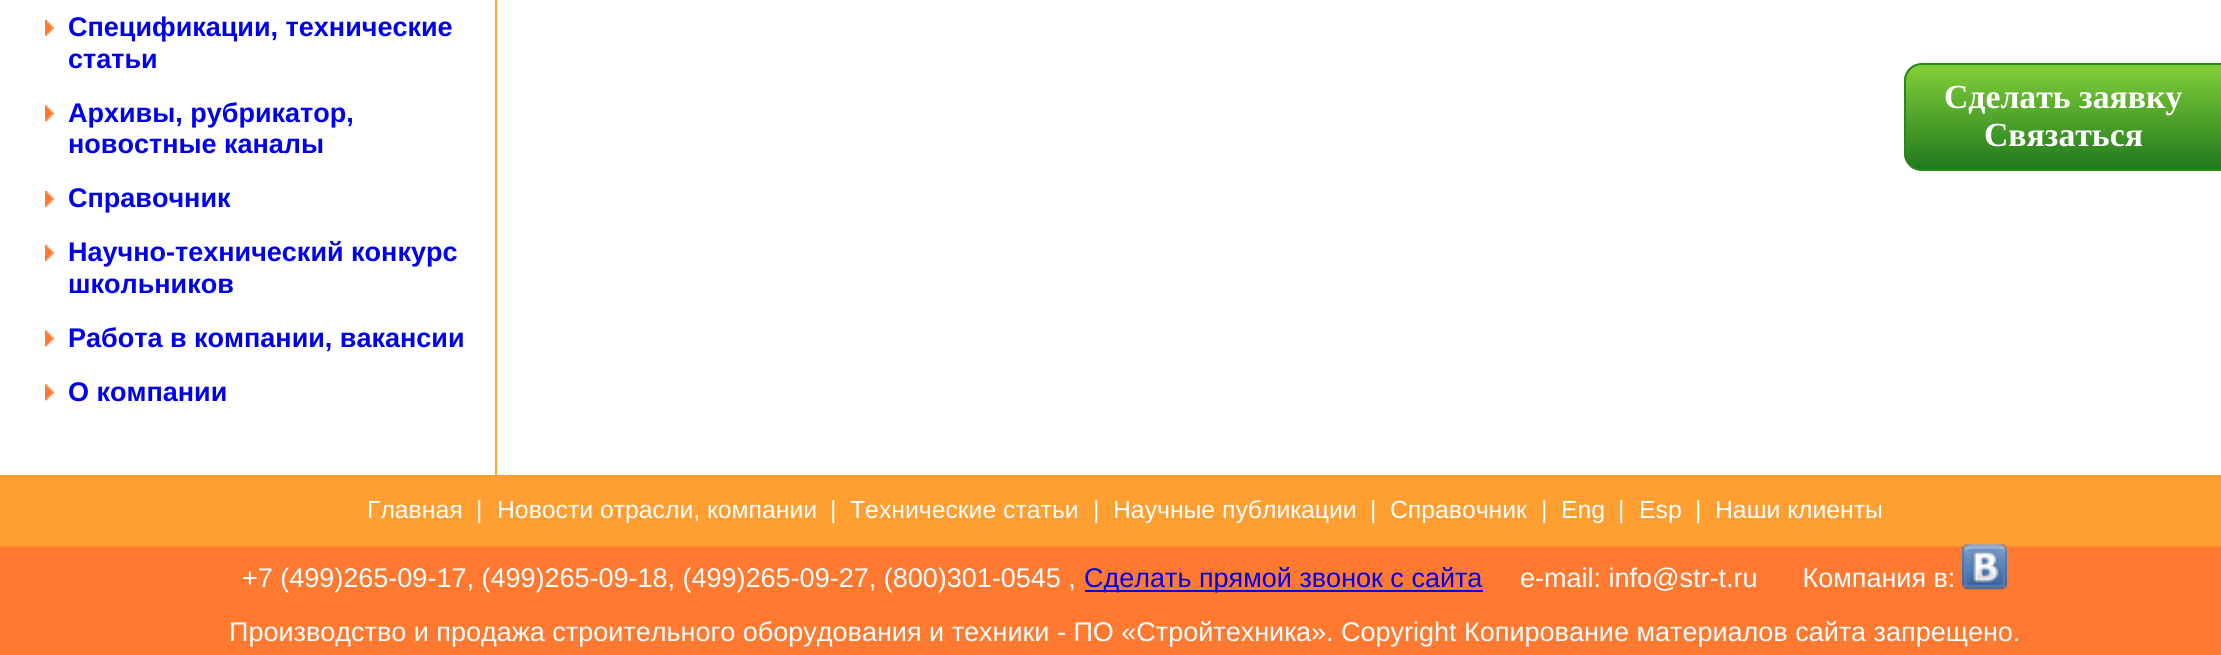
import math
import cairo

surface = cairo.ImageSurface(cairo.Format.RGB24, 2221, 655)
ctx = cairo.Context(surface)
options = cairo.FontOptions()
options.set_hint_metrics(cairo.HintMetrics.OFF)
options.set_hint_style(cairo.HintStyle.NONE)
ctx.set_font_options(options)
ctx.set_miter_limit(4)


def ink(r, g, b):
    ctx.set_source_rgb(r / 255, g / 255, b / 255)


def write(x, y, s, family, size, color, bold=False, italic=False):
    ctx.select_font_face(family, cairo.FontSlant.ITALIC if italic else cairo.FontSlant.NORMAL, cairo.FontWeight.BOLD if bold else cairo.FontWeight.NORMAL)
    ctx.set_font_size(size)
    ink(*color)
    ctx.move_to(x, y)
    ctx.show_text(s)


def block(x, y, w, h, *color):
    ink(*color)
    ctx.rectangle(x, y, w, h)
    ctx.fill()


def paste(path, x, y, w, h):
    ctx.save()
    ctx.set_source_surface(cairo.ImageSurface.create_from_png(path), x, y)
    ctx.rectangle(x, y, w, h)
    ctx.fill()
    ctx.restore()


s1 = dict(family="Liberation Sans", size=27, color=(0, 0, 238), bold=True)
s2 = dict(family="Liberation Serif", size=33.75, color=(255, 255, 255), bold=True)
s3 = dict(family="Liberation Sans", size=24.75, color=(255, 255, 255))
s4 = dict(family="Liberation Sans", size=27, color=(255, 255, 255))
s5 = dict(family="Liberation Sans", size=27, color=(0, 0, 238))

ink(255, 255, 255)
ctx.paint()
paste("pic1.png", 0, 531, 2221, 124)
block(495, 0, 2, 477, 255, 161, 45)
paste("pic2.png", 45, 20, 9, 16)
write(68, 36, "Спецификации, технические", **s1)
write(68, 68, "статьи", **s1)
paste("pic3.png", 45, 105, 9, 17)
write(68, 122, "Архивы, рубрикатор,", **s1)
write(68, 153, "новостные каналы", **s1)
paste("pic2.png", 45, 191, 9, 16)
write(68, 207, "Справочник", **s1)
paste("pic2.png", 45, 245, 9, 16)
write(68, 261, "Научно-технический конкурс", **s1)
write(68, 293, "школьников", **s1)
paste("pic3.png", 45, 330, 9, 17)
write(68, 347, "Работа в компании, вакансии", **s1)
paste("pic3.png", 45, 384, 9, 17)
write(68, 401, "О компании", **s1)
ctx.save()
ctx.new_path()
ctx.move_to(1922, 63)
ctx.line_to(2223, 63)
ctx.line_to(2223, 171)
ctx.line_to(1922, 171)
ctx.curve_to(1912, 171, 1904, 163, 1904, 153)
ctx.line_to(1904, 81)
ctx.curve_to(1904, 71, 1912, 63, 1922, 63)
ctx.close_path()
ctx.clip()
gradient = cairo.LinearGradient(1906, 65, 1906, 169)
gradient.add_color_stop_rgba(0.05, 0.49, 0.8, 0.216, 1)
gradient.add_color_stop_rgba(1, 0.129, 0.471, 0.118, 1)
ctx.set_source(gradient)
ctx.rectangle(1904, 65, 317, 104)
ctx.fill()
ctx.restore()
ctx.new_path()
ctx.move_to(1922, 64)
ctx.line_to(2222, 64)
ctx.line_to(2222, 170)
ctx.line_to(1922, 170)
ctx.curve_to(1912.5, 170, 1905, 162.5, 1905, 153)
ctx.line_to(1905, 81)
ctx.curve_to(1905, 71.5, 1912.5, 64, 1922, 64)
ctx.close_path()
ink(38, 138, 22)
ctx.stroke()
write(1944, 108, "Сделать заявку", **s2)
write(1984, 146, "Cвязаться", **s2)
block(0, 475, 2221, 56, 255, 158, 49)
write(367, 518, "Главная", **s3)
write(476, 518, "|", **s3)
write(497, 518, "Новости отрасли, компании", **s3)
write(830, 518, "|", **s3)
write(850, 518, "Технические статьи", **s3)
write(1093, 518, "|", **s3)
write(1113, 518, "Научные публикации", **s3)
write(1370, 518, "|", **s3)
write(1390, 518, "Справочник", **s3)
write(1541, 518, "|", **s3)
write(1561, 518, "Eng", **s3)
write(1618, 518, "|", **s3)
write(1639, 518, "Esp", **s3)
write(1695, 518, "|", **s3)
write(1715, 518, "Наши клиенты", **s3)
write(242, 587, "+7 (499)265-09-17, (499)265-09-18, (499)265-09-27, (800)301-0545 ,", **s4)
block(1085, 590, 398, 2, 0, 0, 238)
write(1084, 587, "Сделать прямой звонок с сайта", **s5)
write(1520, 587, "e-mail: info@str-t.ru      Компания в:", **s4)
paste("pic4.png", 1962, 544, 45, 46)
write(229, 641, "Производство и продажа строительного оборудования и техники - ПО «Стройтехника». Соpуright Копирование материалов сайта запрещено.", **s4)
surface.write_to_png("screenshot.png")
